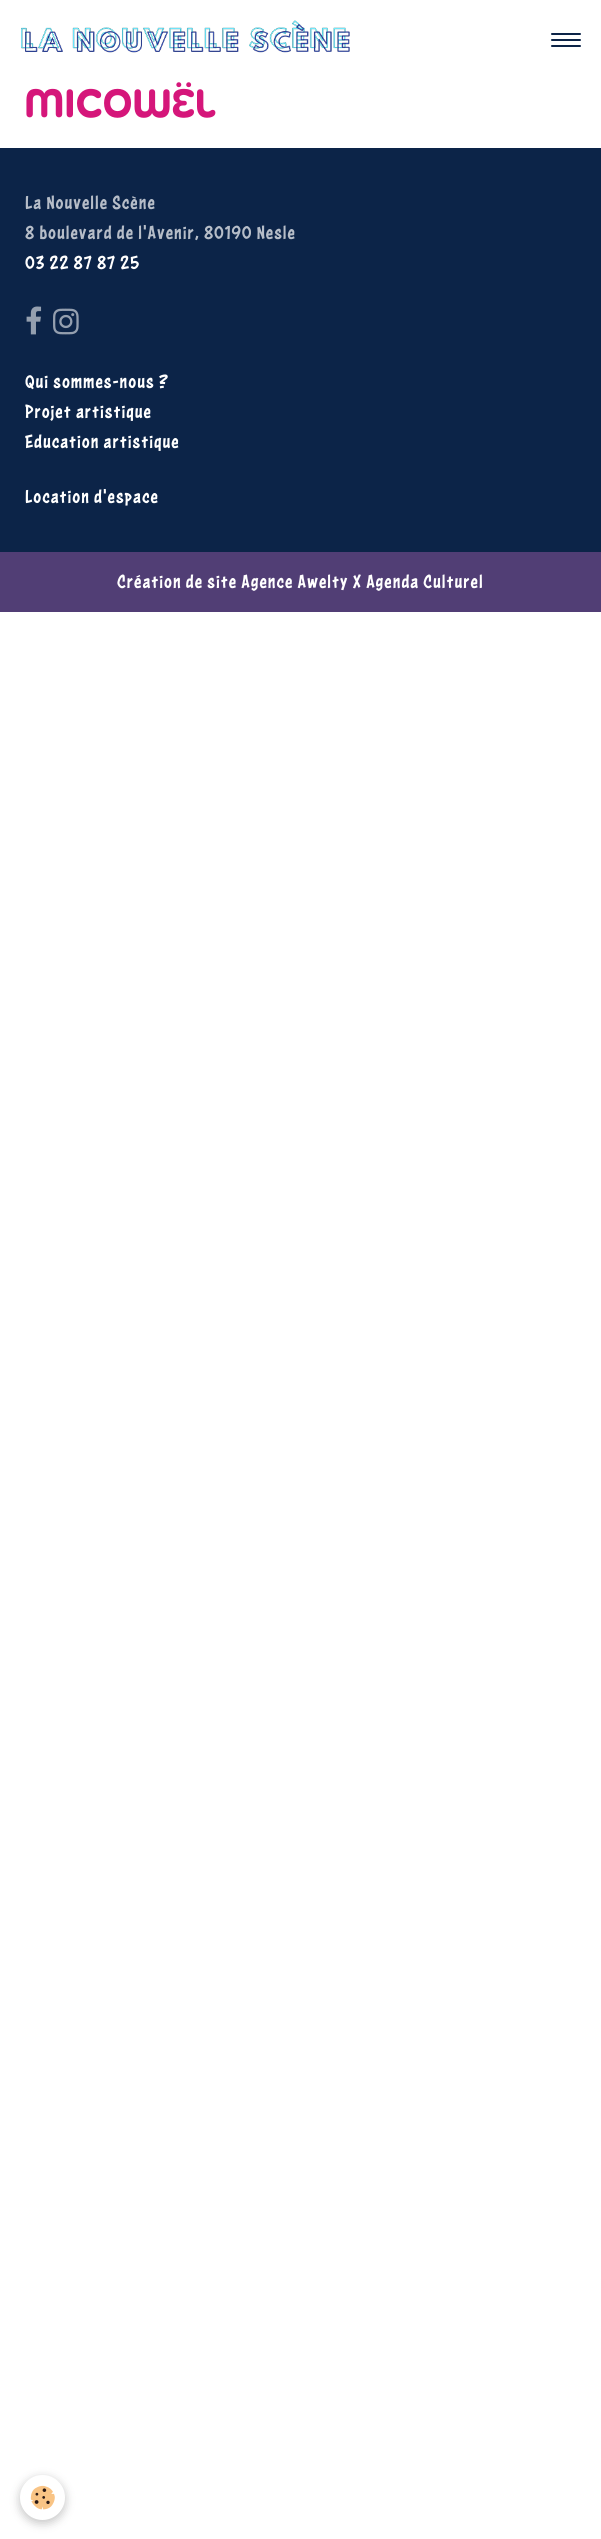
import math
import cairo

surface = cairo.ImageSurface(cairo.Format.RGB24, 601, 2539)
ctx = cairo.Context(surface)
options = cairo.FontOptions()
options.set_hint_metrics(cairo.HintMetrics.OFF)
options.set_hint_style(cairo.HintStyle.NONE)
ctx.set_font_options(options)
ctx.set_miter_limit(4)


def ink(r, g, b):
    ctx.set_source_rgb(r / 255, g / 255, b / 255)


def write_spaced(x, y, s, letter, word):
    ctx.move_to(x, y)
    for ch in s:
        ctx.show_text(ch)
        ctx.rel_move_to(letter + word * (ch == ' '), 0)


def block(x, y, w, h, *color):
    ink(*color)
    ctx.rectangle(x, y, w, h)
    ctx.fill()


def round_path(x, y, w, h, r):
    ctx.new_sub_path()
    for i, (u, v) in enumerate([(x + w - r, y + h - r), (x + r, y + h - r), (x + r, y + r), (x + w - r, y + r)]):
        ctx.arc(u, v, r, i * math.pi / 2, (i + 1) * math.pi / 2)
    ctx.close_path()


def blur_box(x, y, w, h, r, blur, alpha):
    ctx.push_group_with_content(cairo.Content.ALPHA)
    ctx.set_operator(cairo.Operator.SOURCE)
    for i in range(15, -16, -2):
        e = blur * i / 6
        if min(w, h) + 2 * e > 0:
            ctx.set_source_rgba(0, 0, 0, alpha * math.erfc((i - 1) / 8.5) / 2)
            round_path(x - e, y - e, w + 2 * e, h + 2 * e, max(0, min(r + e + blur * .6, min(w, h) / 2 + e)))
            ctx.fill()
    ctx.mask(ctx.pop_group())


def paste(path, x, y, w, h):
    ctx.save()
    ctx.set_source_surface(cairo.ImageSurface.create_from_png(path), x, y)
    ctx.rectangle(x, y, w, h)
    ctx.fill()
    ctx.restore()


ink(255, 255, 255)
ctx.paint()
paste("pic1.png", 21, 20, 329, 33)
ink(12, 36, 72)
round_path(551, 33, 30, 2, 1)
ctx.fill()
round_path(551, 39, 30, 2, 1)
ctx.fill()
round_path(551, 45, 30, 2, 1)
ctx.fill()
paste("pic2.png", 26, 82, 190, 36)
block(0, 148, 601, 404, 12, 36, 72)
ctx.select_font_face("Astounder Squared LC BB")
ctx.set_font_size(20)
ink(182, 189, 200)
write_spaced(25, 209, "La Nouvelle Scène", 1, 0)
write_spaced(25, 239, "8 boulevard de l'Avenir, 80190 Nesle", 1, 0)
ink(255, 255, 255)
write_spaced(25, 269, "03 22 87 87 25", 1, 0)
paste("pic3.png", 26, 306, 16, 29)
paste("pic4.png", 53, 308, 26, 27)
write_spaced(25, 388, "Qui sommes-nous ?", 1, 0)
write_spaced(25, 418, "Projet artistique", 1, 0)
write_spaced(25, 448, "Education artistique", 1, 0)
write_spaced(25, 503, "Location d'espace", 1, 0)
block(0, 552, 601, 60, 81, 62, 117)
ink(255, 255, 255)
write_spaced(117, 588, "Création de site Agence Awelty X Agenda Culturel", 1, 0)
ink(0, 0, 0)
blur_box(20, 2478, 45, 45, 22.5, 5, 0.24)
ink(255, 255, 255)
ctx.arc(42.5, 2497.5, 22.5, 0, 2 * math.pi)
ctx.fill()
paste("pic5.png", 30, 2485, 25, 25)
surface.write_to_png("screenshot.png")
